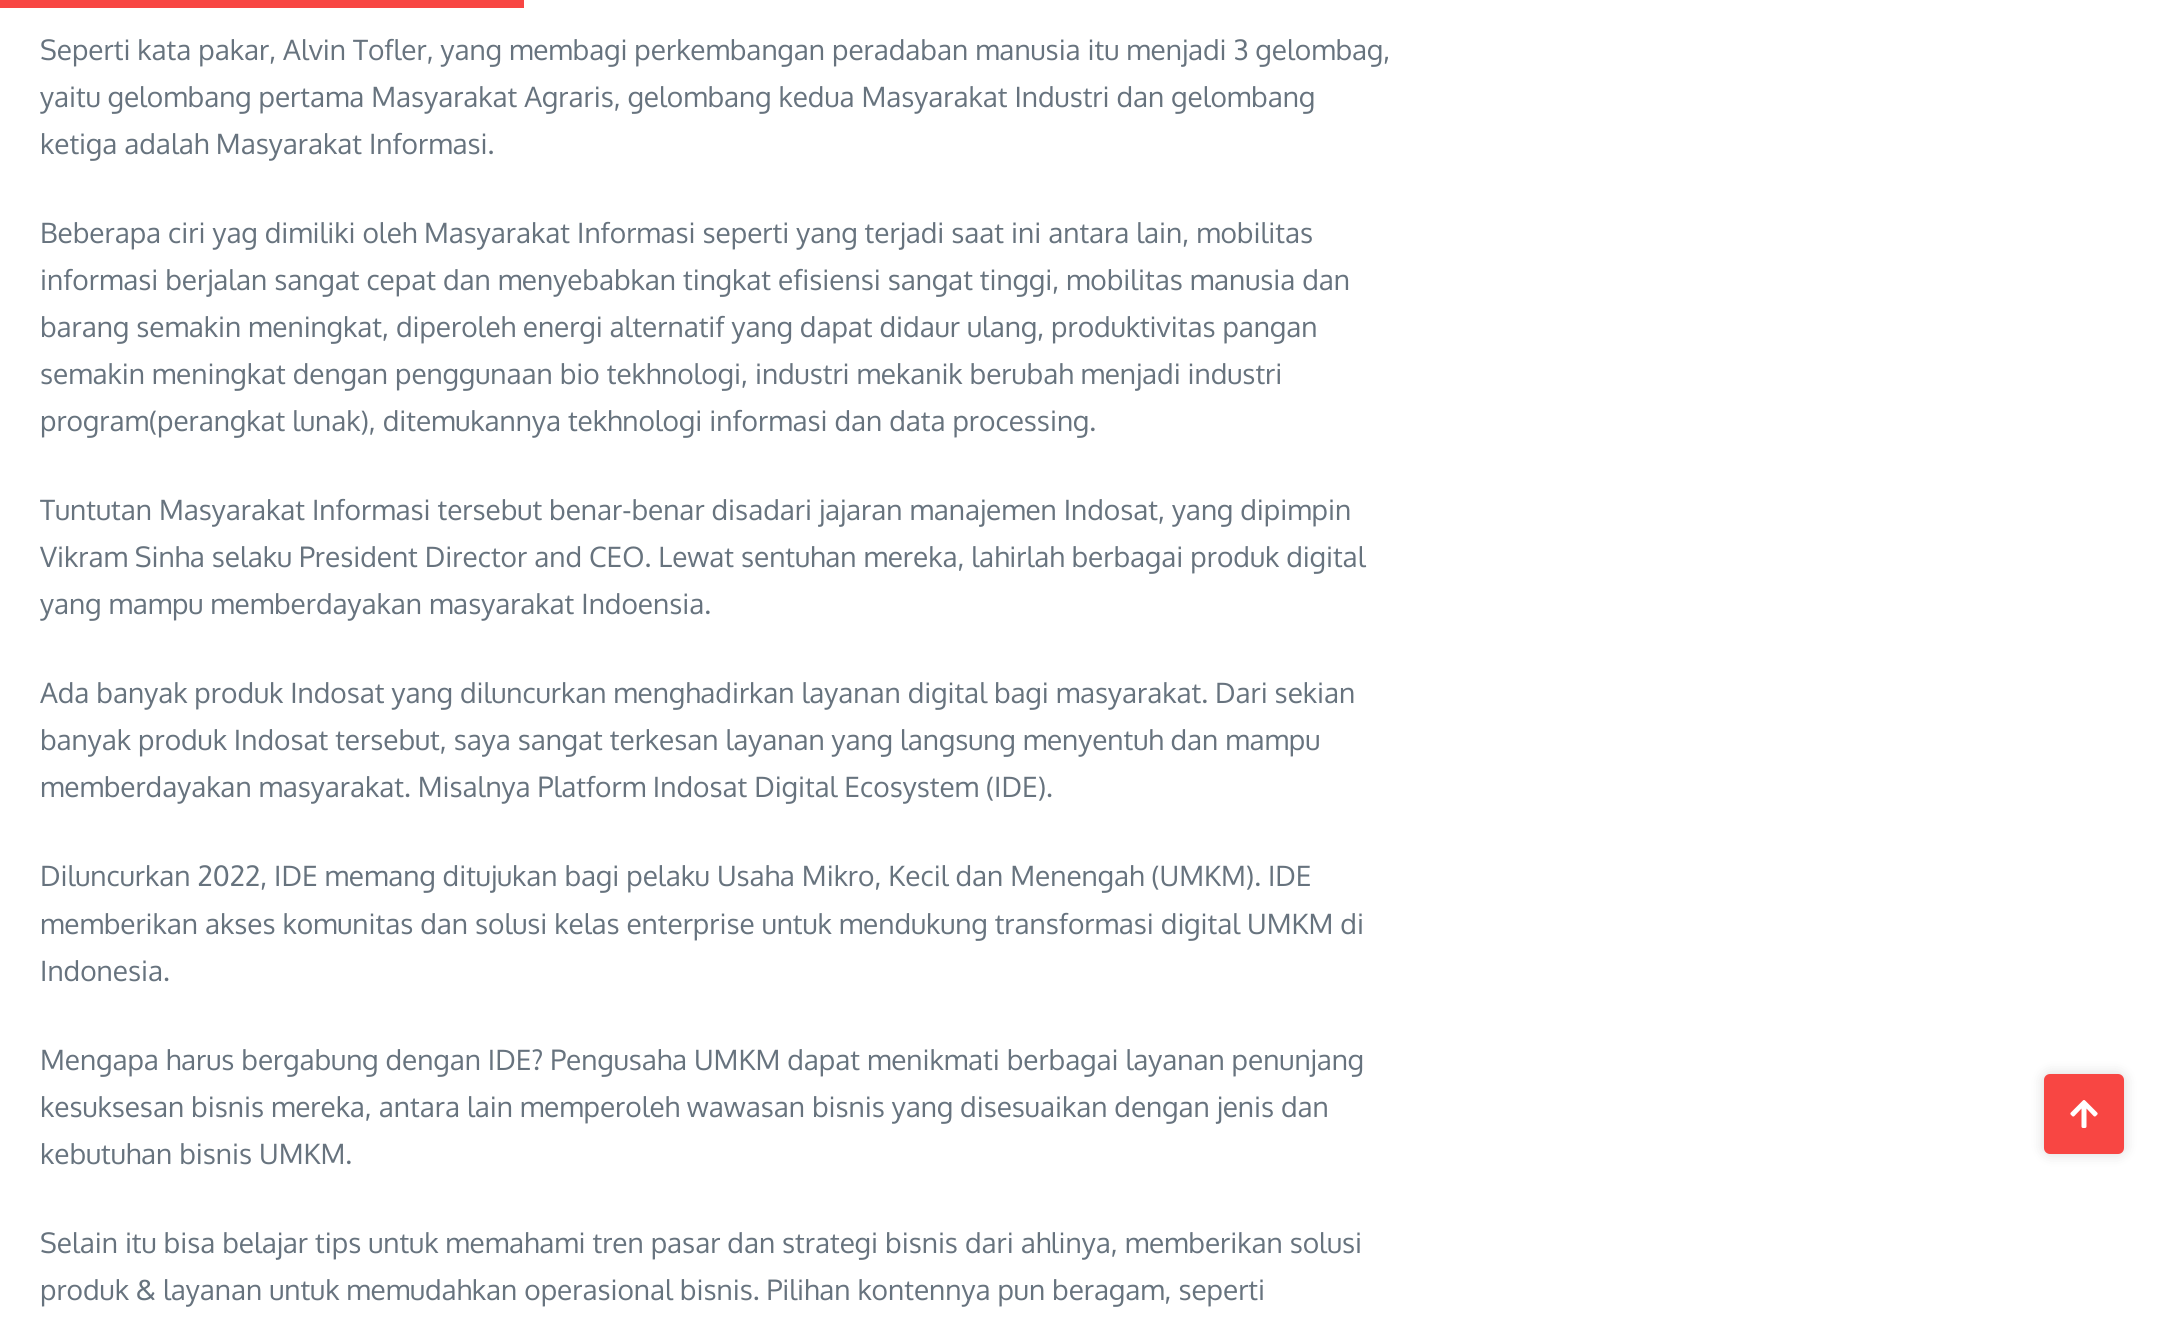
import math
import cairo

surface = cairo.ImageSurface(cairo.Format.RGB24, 2183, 1333)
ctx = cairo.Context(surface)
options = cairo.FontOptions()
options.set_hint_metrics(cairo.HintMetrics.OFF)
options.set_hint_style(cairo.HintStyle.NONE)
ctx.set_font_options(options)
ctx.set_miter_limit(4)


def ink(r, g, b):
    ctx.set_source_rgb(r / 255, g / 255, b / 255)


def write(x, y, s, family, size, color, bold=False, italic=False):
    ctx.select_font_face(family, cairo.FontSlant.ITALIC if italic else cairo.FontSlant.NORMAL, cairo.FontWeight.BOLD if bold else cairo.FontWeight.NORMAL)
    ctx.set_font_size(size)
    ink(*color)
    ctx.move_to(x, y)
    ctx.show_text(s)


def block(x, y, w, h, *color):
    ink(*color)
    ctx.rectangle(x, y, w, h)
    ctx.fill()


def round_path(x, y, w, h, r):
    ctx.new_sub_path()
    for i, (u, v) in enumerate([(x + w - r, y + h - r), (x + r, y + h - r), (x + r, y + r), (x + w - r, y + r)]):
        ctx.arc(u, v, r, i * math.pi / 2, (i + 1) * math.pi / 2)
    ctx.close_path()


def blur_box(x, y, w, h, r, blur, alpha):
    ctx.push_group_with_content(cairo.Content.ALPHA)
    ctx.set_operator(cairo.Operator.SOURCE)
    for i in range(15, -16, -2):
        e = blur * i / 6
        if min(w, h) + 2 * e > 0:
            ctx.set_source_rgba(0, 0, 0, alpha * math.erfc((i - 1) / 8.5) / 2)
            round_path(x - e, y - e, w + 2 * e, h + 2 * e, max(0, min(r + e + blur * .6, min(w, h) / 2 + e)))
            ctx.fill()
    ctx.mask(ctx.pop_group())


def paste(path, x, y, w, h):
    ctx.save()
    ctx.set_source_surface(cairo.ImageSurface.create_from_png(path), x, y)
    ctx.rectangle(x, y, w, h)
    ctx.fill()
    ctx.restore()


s1 = dict(family="Oxygen", size=28, color=(103, 115, 126))

ink(255, 255, 255)
ctx.paint()
block(0, 0, 524, 8, 248, 70, 67)
write(40, 60, "Seperti kata pakar, Alvin Tofler, yang membagi perkembangan peradaban manusia itu menjadi 3 gelombag,", **s1)
write(40, 107, "yaitu gelombang pertama Masyarakat Agraris, gelombang kedua Masyarakat Industri dan gelombang", **s1)
write(40, 154, "ketiga adalah Masyarakat Informasi.", **s1)
write(40, 243, "Beberapa ciri yag dimiliki oleh Masyarakat Informasi seperti yang terjadi saat ini antara lain, mobilitas", **s1)
write(40, 290, "informasi berjalan sangat cepat dan menyebabkan tingkat efisiensi sangat tinggi, mobilitas manusia dan", **s1)
write(40, 337, "barang semakin meningkat, diperoleh energi alternatif yang dapat didaur ulang, produktivitas pangan", **s1)
write(40, 384, "semakin meningkat dengan penggunaan bio tekhnologi, industri mekanik berubah menjadi industri", **s1)
write(40, 431, "program(perangkat lunak), ditemukannya tekhnologi informasi dan data processing.", **s1)
write(40, 520, "Tuntutan Masyarakat Informasi tersebut benar-benar disadari jajaran manajemen Indosat, yang dipimpin", **s1)
write(40, 567, "Vikram Sinha selaku President Director and CEO. Lewat sentuhan mereka, lahirlah berbagai produk digital", **s1)
write(40, 614, "yang mampu memberdayakan masyarakat Indoensia.", **s1)
write(40, 703, "Ada banyak produk Indosat yang diluncurkan menghadirkan layanan digital bagi masyarakat. Dari sekian", **s1)
write(40, 750, "banyak produk Indosat tersebut, saya sangat terkesan layanan yang langsung menyentuh dan mampu", **s1)
write(40, 797, "memberdayakan masyarakat. Misalnya Platform Indosat Digital Ecosystem (IDE).", **s1)
write(40, 886, "Diluncurkan 2022, IDE memang ditujukan bagi pelaku Usaha Mikro, Kecil dan Menengah (UMKM). IDE", **s1)
write(40, 934, "memberikan akses komunitas dan solusi kelas enterprise untuk mendukung transformasi digital UMKM di", **s1)
write(40, 981, "Indonesia.", **s1)
write(40, 1070, "Mengapa harus bergabung dengan IDE? Pengusaha UMKM dapat menikmati berbagai layanan penunjang", **s1)
write(40, 1117, "kesuksesan bisnis mereka, antara lain memperoleh wawasan bisnis yang disesuaikan dengan jenis dan", **s1)
write(40, 1164, "kebutuhan bisnis UMKM.", **s1)
write(40, 1253, "Selain itu bisa belajar tips untuk memahami tren pasar dan strategi bisnis dari ahlinya, memberikan solusi", **s1)
write(40, 1300, "produk & layanan untuk memudahkan operasional bisnis. Pilihan kontennya pun beragam, seperti", **s1)
ink(0, 0, 0)
blur_box(2044, 1074, 80, 80, 6, 7, 0.15)
ink(248, 70, 67)
round_path(2044, 1074, 80, 80, 6)
ctx.fill()
paste("pic1.png", 2070, 1100, 28, 28)
surface.write_to_png("screenshot.png")
